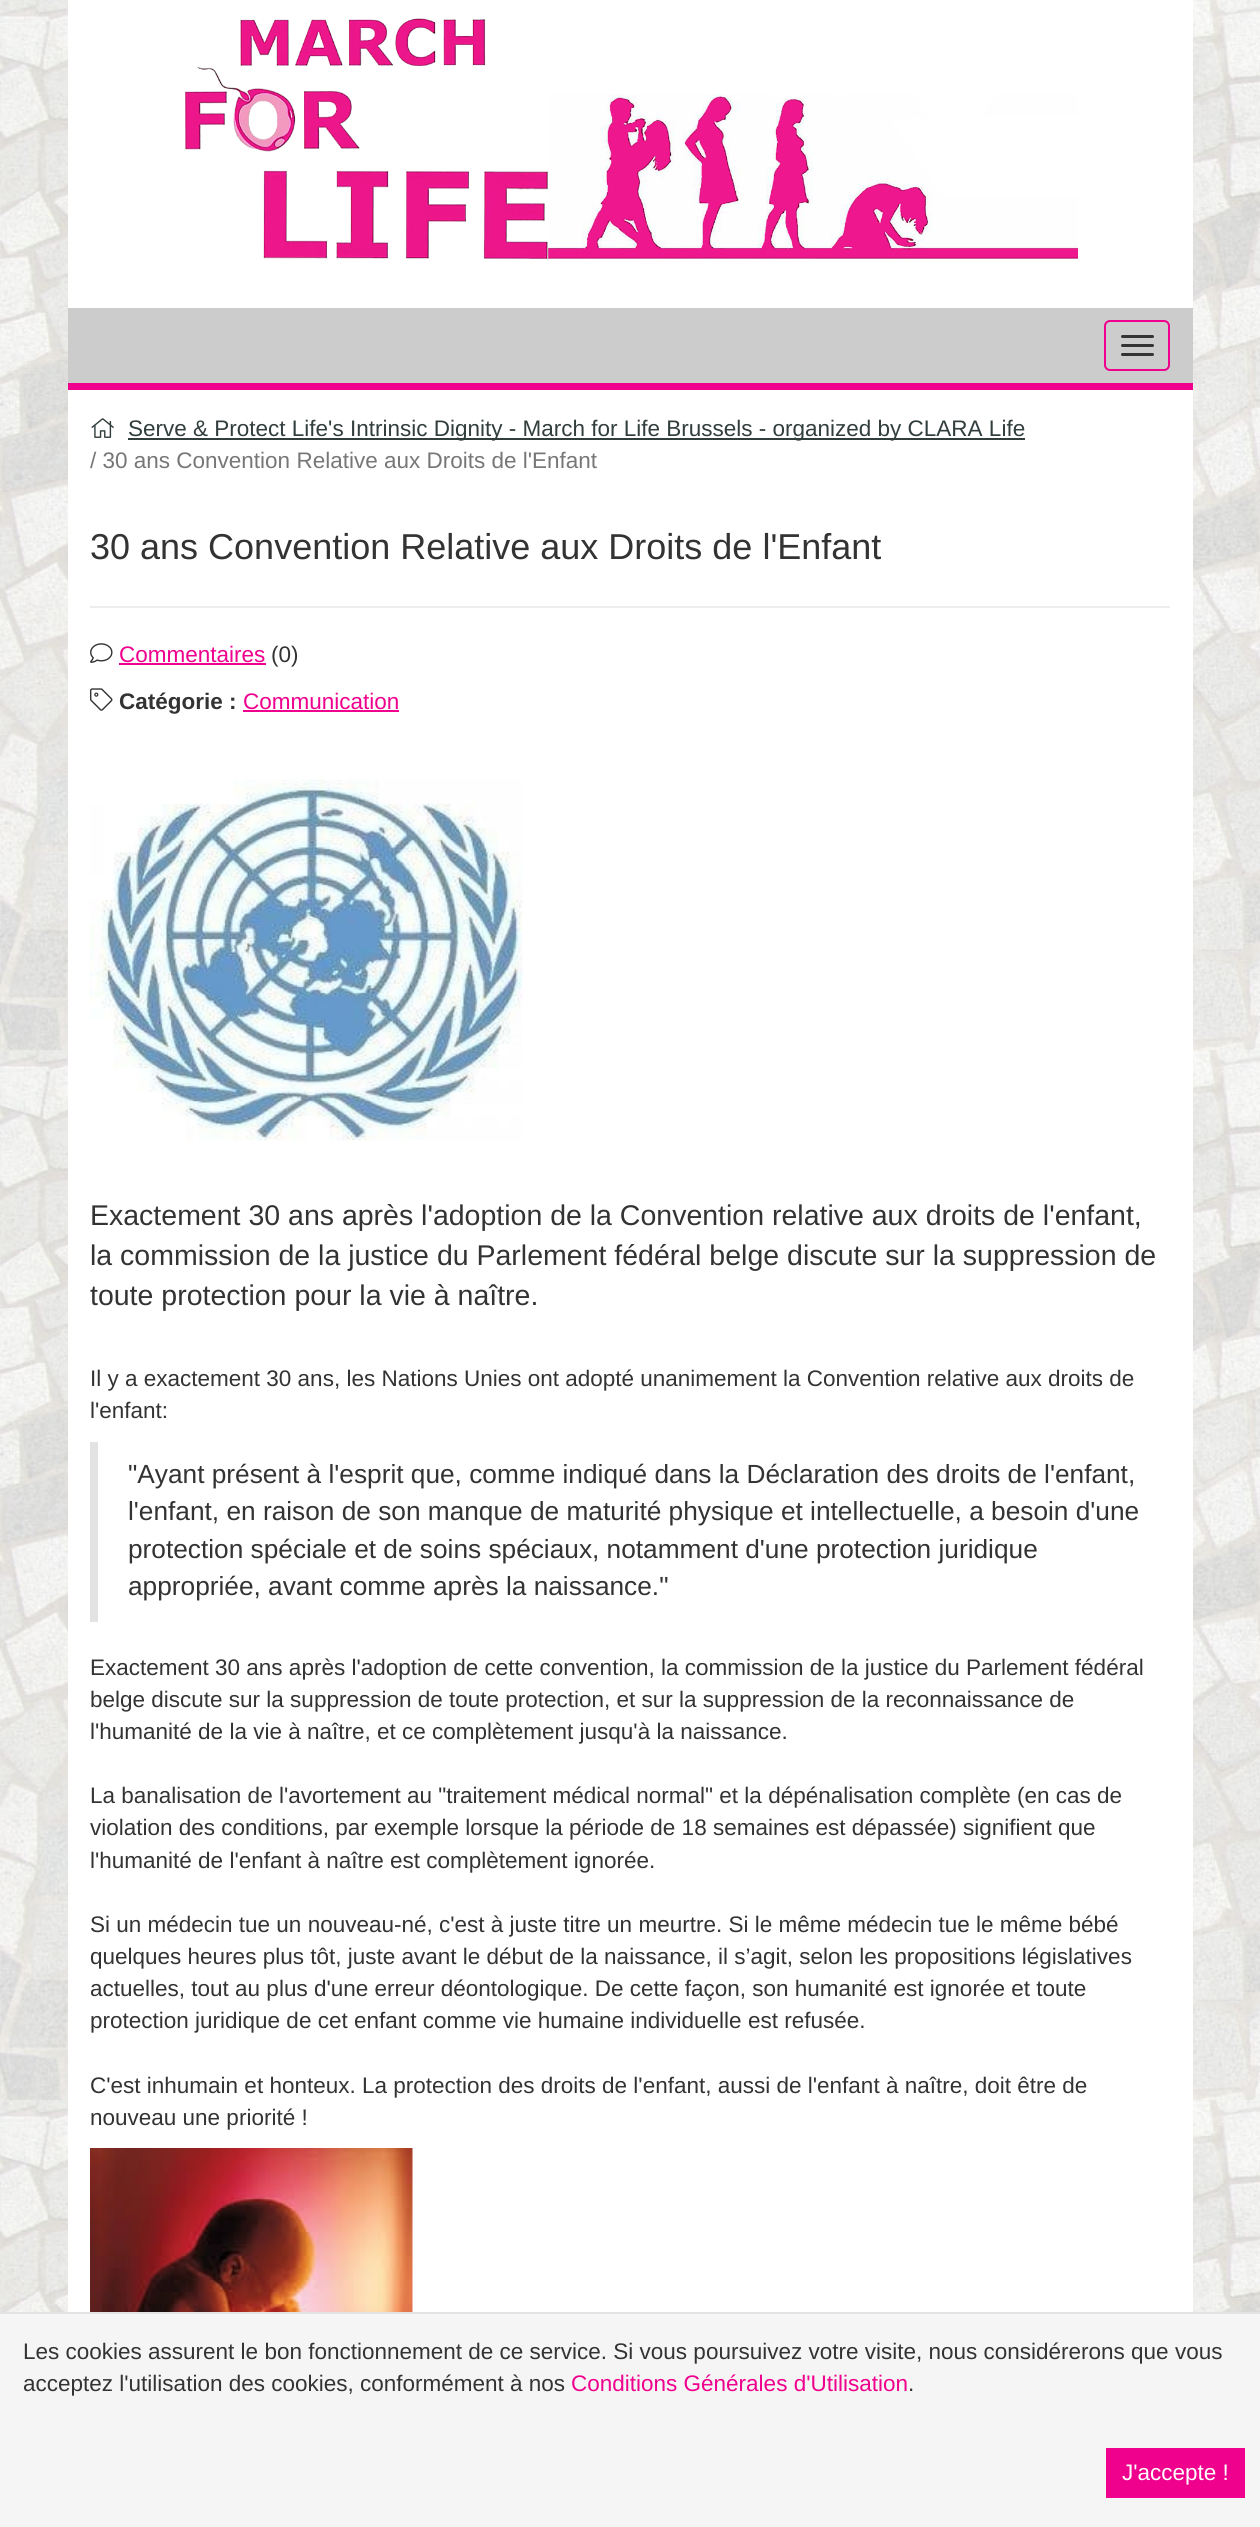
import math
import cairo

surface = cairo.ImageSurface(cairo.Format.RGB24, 1260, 2527)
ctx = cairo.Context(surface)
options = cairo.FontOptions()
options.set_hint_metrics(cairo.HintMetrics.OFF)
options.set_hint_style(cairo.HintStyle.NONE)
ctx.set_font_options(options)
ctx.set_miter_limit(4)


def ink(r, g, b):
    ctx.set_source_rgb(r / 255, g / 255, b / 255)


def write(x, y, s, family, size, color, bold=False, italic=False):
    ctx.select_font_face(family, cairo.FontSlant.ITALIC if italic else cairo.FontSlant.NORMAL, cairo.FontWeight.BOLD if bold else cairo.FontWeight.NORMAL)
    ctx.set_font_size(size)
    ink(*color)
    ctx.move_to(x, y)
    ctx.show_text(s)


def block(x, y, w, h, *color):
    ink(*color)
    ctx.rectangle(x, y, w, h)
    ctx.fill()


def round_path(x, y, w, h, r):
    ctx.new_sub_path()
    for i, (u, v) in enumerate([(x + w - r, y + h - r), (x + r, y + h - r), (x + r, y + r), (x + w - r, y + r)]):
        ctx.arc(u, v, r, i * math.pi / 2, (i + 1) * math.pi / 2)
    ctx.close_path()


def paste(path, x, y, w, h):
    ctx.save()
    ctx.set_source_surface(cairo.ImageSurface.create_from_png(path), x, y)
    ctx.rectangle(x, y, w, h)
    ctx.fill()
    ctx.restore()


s1 = dict(family="Liberation Sans", size=22.5, color=(50, 61, 61))
s2 = dict(family="Liberation Sans", size=22.5, color=(119, 119, 119))
s3 = dict(family="Liberation Sans", size=36, color=(51, 51, 51))
s4 = dict(family="Liberation Sans", size=22.5, color=(239, 0, 141))
s5 = dict(family="Liberation Sans", size=22.5, color=(51, 51, 51))
s6 = dict(family="Liberation Sans", size=22.5, color=(51, 51, 51), bold=True)
s7 = dict(family="Liberation Sans", size=28.5, color=(51, 51, 51))
s8 = dict(family="Liberation Sans", size=26.25, color=(51, 51, 51))
s9 = dict(family="Liberation Sans", size=22.5, color=(255, 255, 255))

ink(255, 255, 255)
ctx.paint()
paste("pic1.png", 0, 0, 1260, 2312)
block(68, 0, 1125, 308, 255, 255, 255)
paste("pic2.png", 185, 18, 893, 241)
block(68, 308, 1125, 75, 204, 204, 204)
block(68, 383, 1125, 7, 239, 0, 141)
round_path(1105, 321, 64, 49, 5)
ctx.stroke()
ink(51, 51, 51)
round_path(1121, 335, 33, 3, 1.5)
ctx.fill()
round_path(1121, 344, 33, 3, 1.5)
ctx.fill()
round_path(1121, 353, 33, 3, 1.5)
ctx.fill()
block(68, 390, 1125, 1922, 255, 255, 255)
paste("pic3.png", 91, 418, 23, 20)
block(128, 438, 897, 2, 50, 61, 61)
write(128, 436, "Serve & Protect Life's Intrinsic Dignity - March for Life Brussels - organized by CLARA Life", **s1)
write(90, 468, "/ 30 ans Convention Relative aux Droits de l'Enfant", **s2)
write(90, 559, "30 ans Convention Relative aux Droits de l'Enfant", **s3)
block(90, 606, 1080, 2, 238, 238, 238)
paste("pic4.png", 90, 643, 23, 20)
write(119, 662, "Commentaires", **s4)
block(119, 663, 147, 2, 239, 0, 141)
write(271, 662, "(0)", **s5)
paste("pic5.png", 90, 688, 23, 23)
write(119, 709, "Catégorie :", **s6)
write(243, 709, "Communication", **s4)
block(243, 710, 156, 2, 239, 0, 141)
paste("pic6.png", 90, 779, 433, 362)
write(90, 1225, "Exactement 30 ans après l'adoption de la Convention relative aux droits de l'enfant,", **s7)
write(90, 1265, "la commission de la justice du Parlement fédéral belge discute sur la suppression de", **s7)
write(90, 1305, "toute protection pour la vie à naître.", **s7)
write(90, 1386, "Il y a exactement 30 ans, les Nations Unies ont adopté unanimement la Convention relative aux droits de", **s5)
write(90, 1418, "l'enfant:", **s5)
block(90, 1442, 8, 180, 227, 227, 227)
write(128, 1483, "\"Ayant présent à l'esprit que, comme indiqué dans la Déclaration des droits de l'enfant,", **s8)
write(128, 1520, "l'enfant, en raison de son manque de maturité physique et intellectuelle, a besoin d'une", **s8)
write(128, 1558, "protection spéciale et de soins spéciaux, notamment d'une protection juridique", **s8)
write(128, 1595, "appropriée, avant comme après la naissance.\"", **s8)
write(90, 1675, "Exactement 30 ans après l'adoption de cette convention, la commission de la justice du Parlement fédéral", **s5)
write(90, 1707, "belge discute sur la suppression de toute protection, et sur la suppression de la reconnaissance de", **s5)
write(90, 1739, "l'humanité de la vie à naître, et ce complètement jusqu'à la naissance.", **s5)
write(90, 1803, "La banalisation de l'avortement au \"traitement médical normal\" et la dépénalisation complète (en cas de", **s5)
write(90, 1835, "violation des conditions, par exemple lorsque la période de 18 semaines est dépassée) signifient que", **s5)
write(90, 1868, "l'humanité de l'enfant à naître est complètement ignorée.", **s5)
write(90, 1932, "Si un médecin tue un nouveau-né, c'est à juste titre un meurtre. Si le même médecin tue le même bébé", **s5)
write(90, 1964, "quelques heures plus tôt, juste avant le début de la naissance, il s’agit, selon les propositions législatives", **s5)
write(90, 1996, "actuelles, tout au plus d'une erreur déontologique. De cette façon, son humanité est ignorée et toute", **s5)
write(90, 2028, "protection juridique de cet enfant comme vie humaine individuelle est refusée.", **s5)
write(90, 2093, "C'est inhumain et honteux. La protection des droits de l'enfant, aussi de l'enfant à naître, doit être de", **s5)
write(90, 2125, "nouveau une priorité !", **s5)
paste("pic7.png", 90, 2148, 323, 164)
block(0, 2314, 1260, 213, 245, 245, 245)
block(0, 2312, 1260, 2, 227, 227, 227)
write(23, 2359, "Les cookies assurent le bon fonctionnement de ce service. Si vous poursuivez votre visite, nous considérerons que vous", **s5)
write(23, 2391, "acceptez l'utilisation des cookies, conformément à nos", **s5)
write(571, 2391, "Conditions Générales d'Utilisation", **s4)
write(908, 2391, ".", **s5)
block(1106, 2448, 139, 50, 239, 0, 141)
write(1122, 2480, "J'accepte !", **s9)
surface.write_to_png("screenshot.png")
